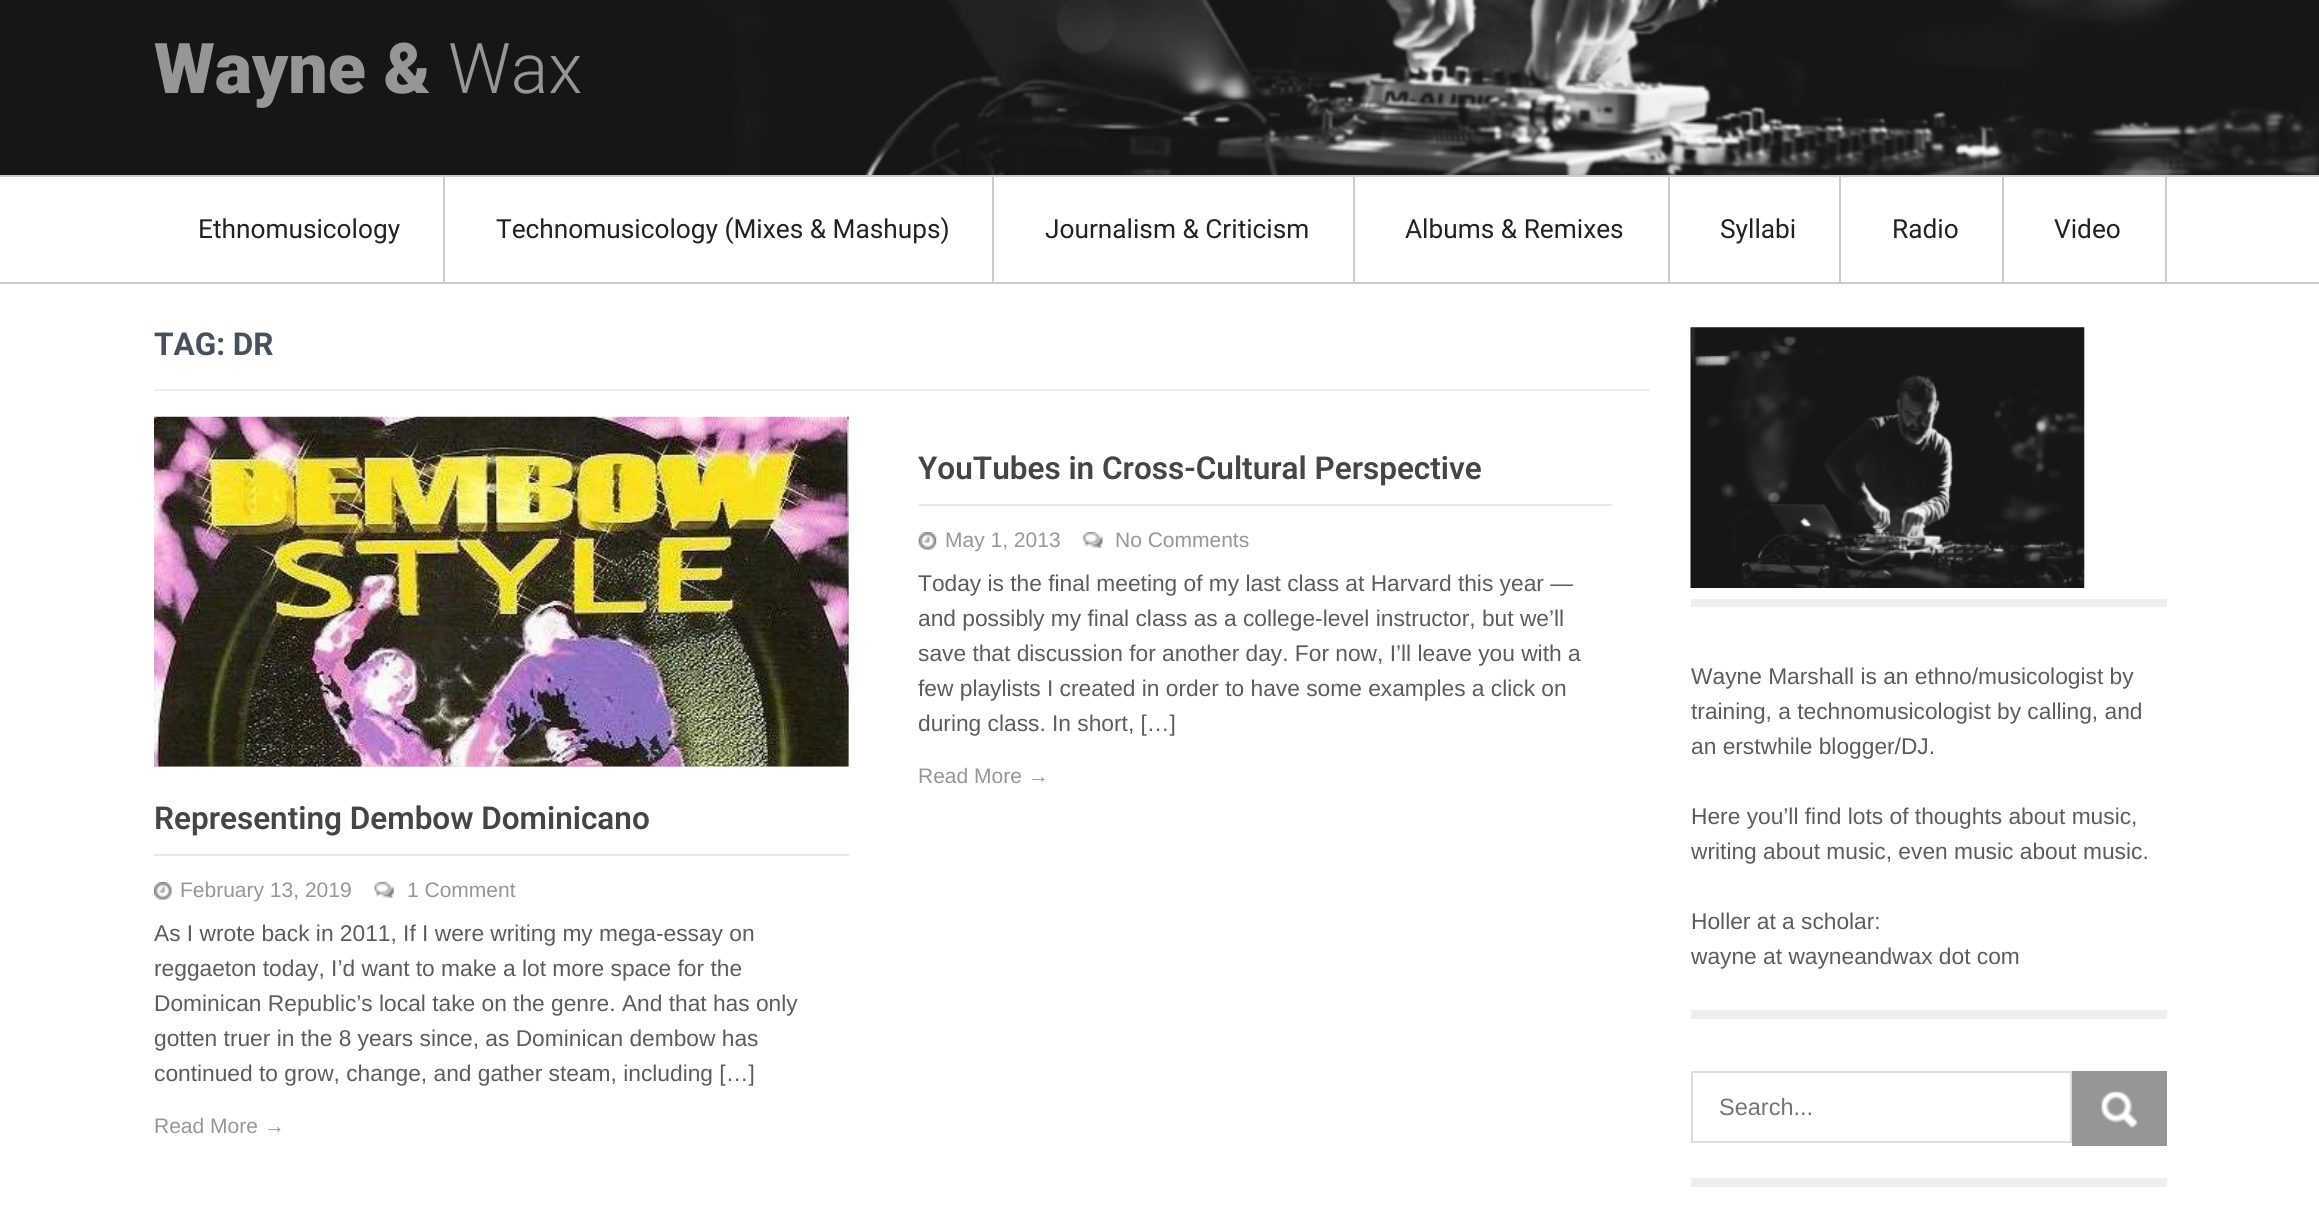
import math
import cairo

surface = cairo.ImageSurface(cairo.Format.RGB24, 2319, 1208)
ctx = cairo.Context(surface)
options = cairo.FontOptions()
options.set_hint_metrics(cairo.HintMetrics.OFF)
options.set_hint_style(cairo.HintStyle.NONE)
ctx.set_font_options(options)
ctx.set_miter_limit(4)


def ink(r, g, b):
    ctx.set_source_rgb(r / 255, g / 255, b / 255)


def write(x, y, s, family, size, color, bold=False, italic=False):
    ctx.select_font_face(family, cairo.FontSlant.ITALIC if italic else cairo.FontSlant.NORMAL, cairo.FontWeight.BOLD if bold else cairo.FontWeight.NORMAL)
    ctx.set_font_size(size)
    ink(*color)
    ctx.move_to(x, y)
    ctx.show_text(s)


def block(x, y, w, h, *color):
    ink(*color)
    ctx.rectangle(x, y, w, h)
    ctx.fill()


def paste(path, x, y, w, h):
    ctx.save()
    ctx.set_source_surface(cairo.ImageSurface.create_from_png(path), x, y)
    ctx.rectangle(x, y, w, h)
    ctx.fill()
    ctx.restore()


s1 = dict(family="Roboto Black", size=70, color=(150, 150, 150))
s2 = dict(family="Roboto Light", size=70, color=(150, 150, 150))
s3 = dict(family="Roboto", size=26.25, color=(34, 34, 34))
s4 = dict(family="Roboto", size=31.5, color=(72, 79, 94), bold=True)
s5 = dict(family="Roboto SemiBold", size=31.5, color=(70, 69, 69))
s6 = dict(family="Liberation Sans", size=21, color=(150, 150, 150))
s7 = dict(family="Liberation Sans", size=22.75, color=(92, 92, 92))
s8 = dict(family="Liberation Sans", size=23.5, color=(117, 117, 117))

ink(255, 255, 255)
ctx.paint()
paste("pic1.png", 0, 0, 2319, 175)
write(154, 93, "Wayne &", **s1)
write(448, 93, "Wax", **s2)
block(0, 175, 2319, 2, 204, 204, 204)
block(0, 282, 2319, 2, 204, 204, 204)
block(443, 177, 2, 105, 204, 204, 204)
write(198, 238, "Ethnomusicology", **s3)
block(992, 177, 2, 105, 204, 204, 204)
write(496, 238, "Technomusicology (Mixes & Mashups)", **s3)
block(1353, 177, 2, 105, 204, 204, 204)
write(1045, 238, "Journalism & Criticism", **s3)
block(1668, 177, 2, 105, 204, 204, 204)
write(1405, 238, "Albums & Remixes", **s3)
block(1839, 177, 2, 105, 204, 204, 204)
write(1720, 238, "Syllabi", **s3)
block(2002, 177, 2, 105, 204, 204, 204)
write(1892, 238, "Radio", **s3)
block(2165, 177, 2, 105, 204, 204, 204)
write(2054, 238, "Video", **s3)
block(154, 389, 1496, 2, 238, 238, 238)
write(154, 355, "TAG: DR", **s4)
block(919, 504, 693, 2, 232, 230, 230)
write(918, 479, "YouTubes in Cross-Cultural Perspective", **s5)
paste("pic2.png", 918, 532, 19, 18)
write(945, 547, "May 1, 2013", **s6)
paste("pic3.png", 1083, 532, 20, 16)
write(1115, 547, "No Comments", **s6)
write(918, 591, "Today is the final meeting of my last class at Harvard this year —", **s7)
write(918, 626, "and possibly my final class as a college-level instructor, but we’ll", **s7)
write(918, 661, "save that discussion for another day. For now, I’ll leave you with a", **s7)
write(918, 696, "few playlists I created in order to have some examples a click on", **s7)
write(918, 731, "during class. In short, […]", **s7)
write(918, 783, "Read More →", **s6)
block(154, 417, 695, 350, 222, 222, 222)
paste("pic4.png", 154, 416, 695, 351)
block(154, 854, 695, 2, 232, 230, 230)
write(154, 829, "Representing Dembow Dominicano", **s5)
paste("pic5.png", 154, 882, 18, 18)
write(180, 897, "February 13, 2019", **s6)
paste("pic6.png", 374, 882, 20, 16)
write(407, 897, "1 Comment", **s6)
write(154, 941, "As I wrote back in 2011, If I were writing my mega-essay on", **s7)
write(154, 976, "reggaeton today, I’d want to make a lot more space for the", **s7)
write(154, 1011, "Dominican Republic’s local take on the genre. And that has only", **s7)
write(154, 1046, "gotten truer in the 8 years since, as Dominican dembow has", **s7)
write(154, 1081, "continued to grow, change, and gather steam, including […]", **s7)
write(154, 1133, "Read More →", **s6)
block(1691, 599, 476, 8, 238, 238, 238)
paste("pic7.png", 1690, 327, 395, 261)
block(1691, 1010, 476, 9, 238, 238, 238)
write(1691, 684, "Wayne Marshall is an ethno/musicologist by", **s7)
write(1691, 719, "training, a technomusicologist by calling, and", **s7)
write(1691, 754, "an erstwhile blogger/DJ.", **s7)
write(1691, 824, "Here you’ll find lots of thoughts about music,", **s7)
write(1691, 859, "writing about music, even music about music.", **s7)
write(1691, 929, "Holler at a scholar:", **s7)
write(1691, 964, "wayne at wayneandwax dot com", **s7)
block(1691, 1178, 476, 9, 238, 238, 238)
ctx.rectangle(1692, 1072, 379, 70)
ink(221, 221, 221)
ctx.stroke()
write(1719, 1115, "Search...", **s8)
block(2072, 1071, 95, 75, 150, 150, 150)
paste("pic8.png", 2101, 1091, 37, 37)
surface.write_to_png("screenshot.png")
